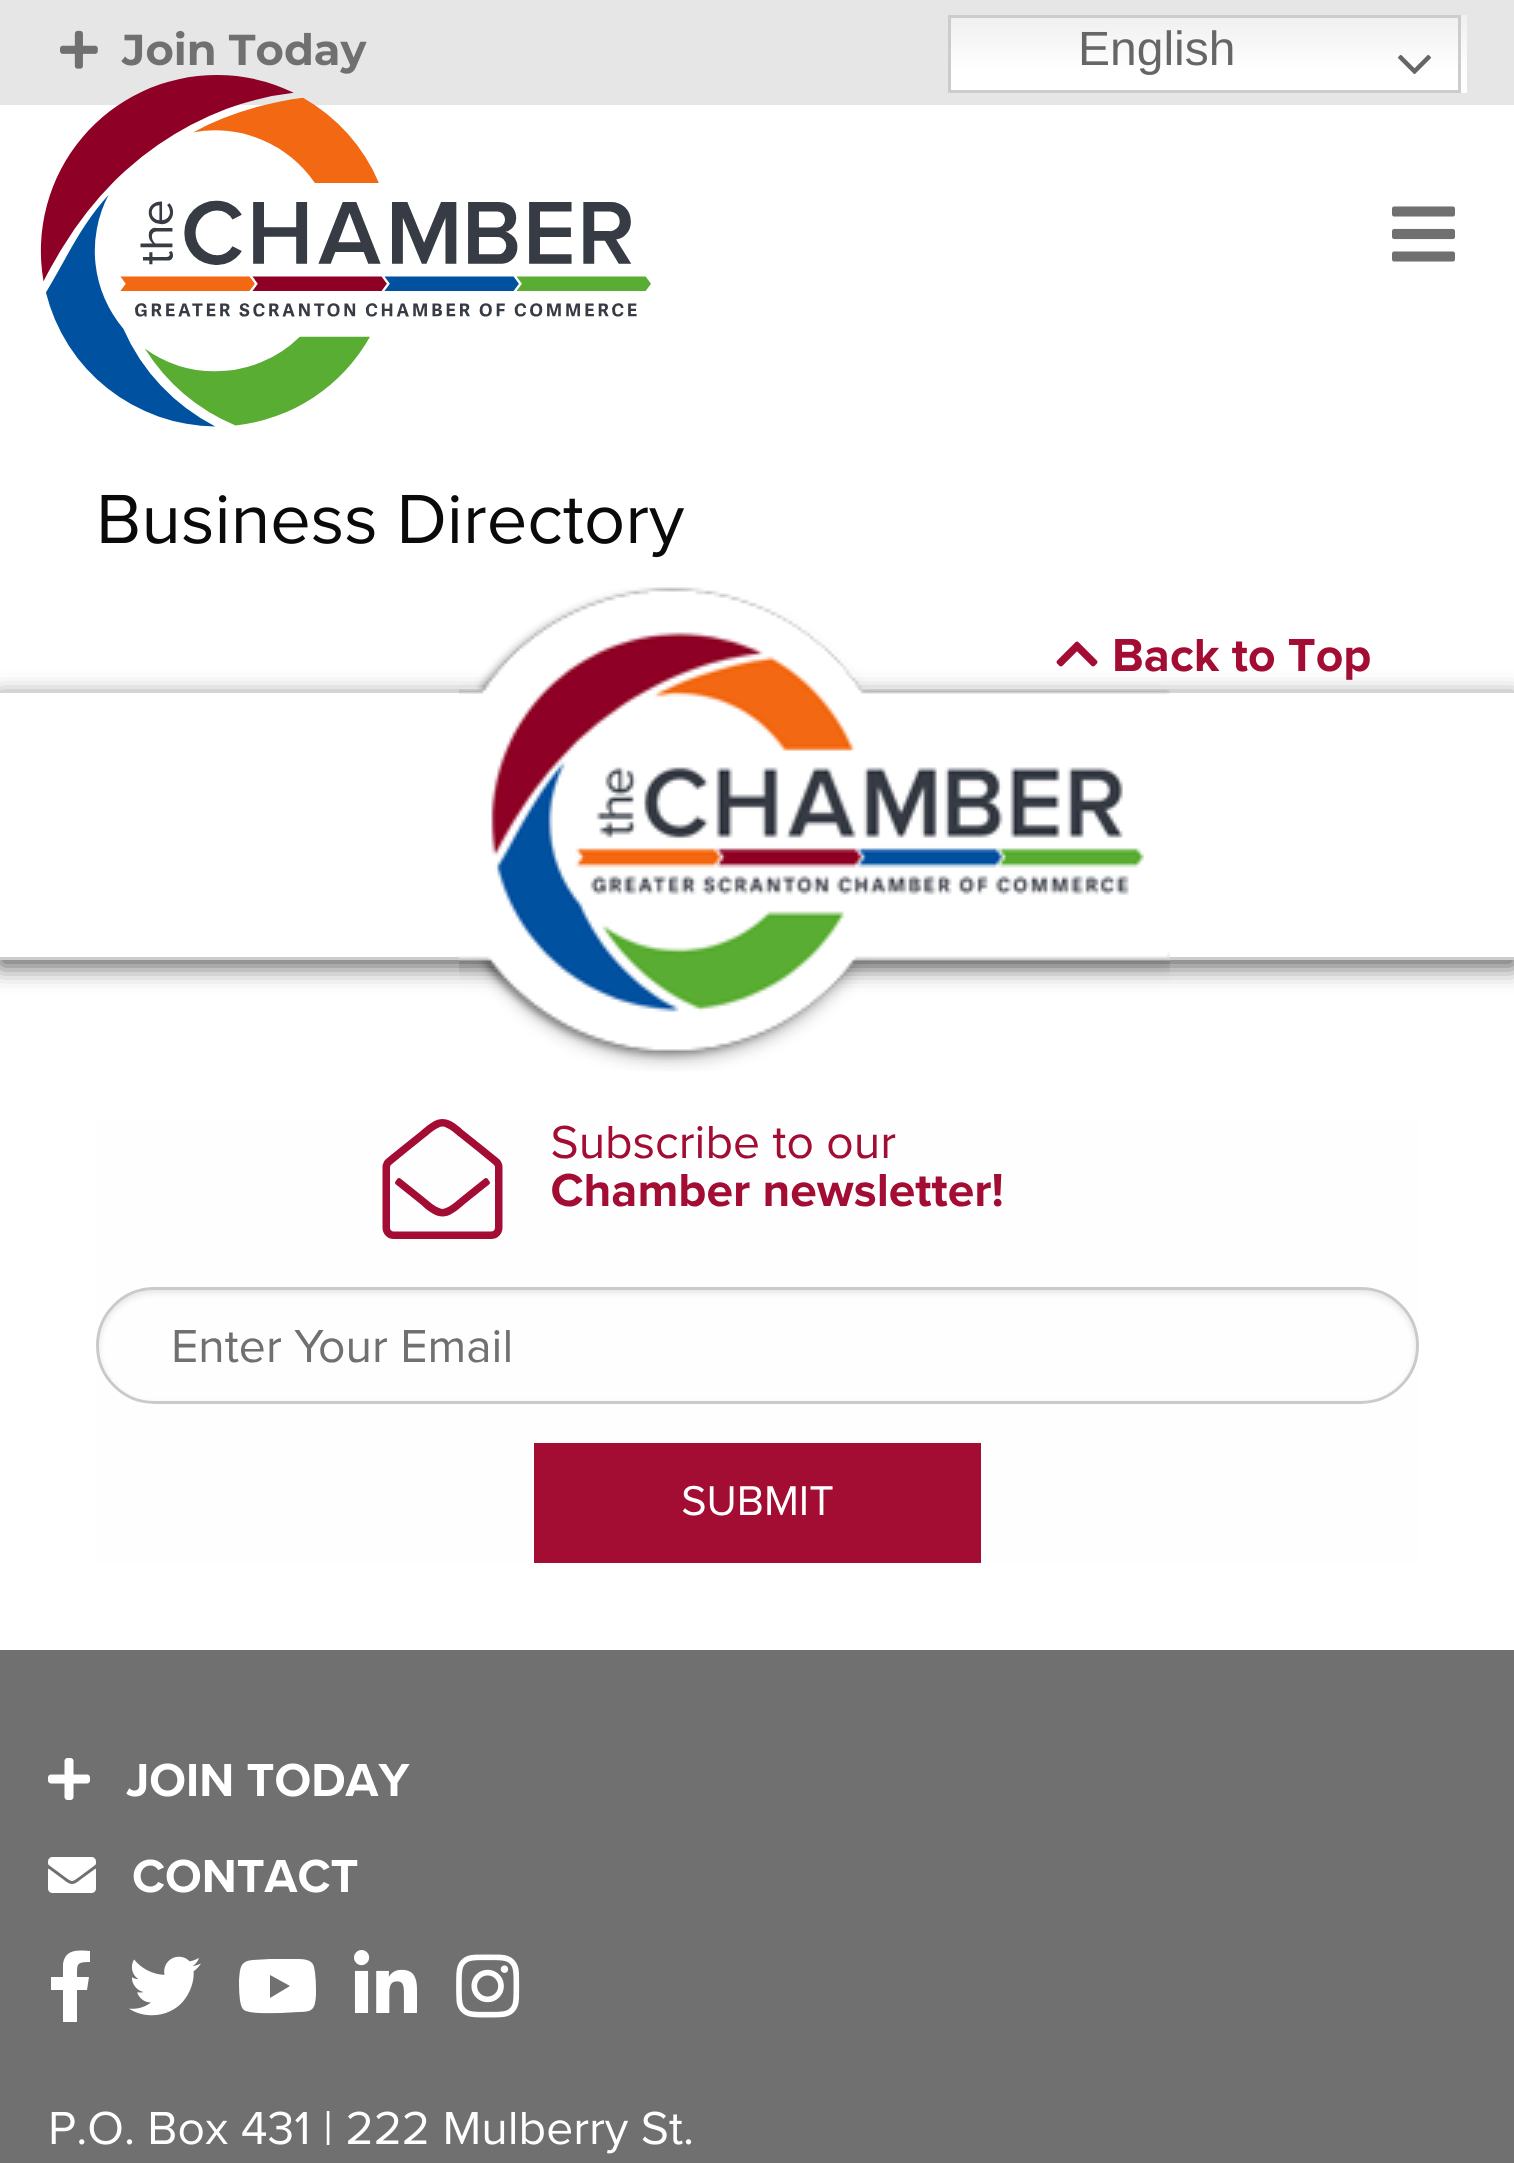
import math
import cairo

surface = cairo.ImageSurface(cairo.Format.RGB24, 1514, 2163)
ctx = cairo.Context(surface)
options = cairo.FontOptions()
options.set_hint_metrics(cairo.HintMetrics.OFF)
options.set_hint_style(cairo.HintStyle.NONE)
ctx.set_font_options(options)
ctx.set_miter_limit(4)


def ink(r, g, b):
    ctx.set_source_rgb(r / 255, g / 255, b / 255)


def write(x, y, s, family, size, color, bold=False, italic=False):
    ctx.select_font_face(family, cairo.FontSlant.ITALIC if italic else cairo.FontSlant.NORMAL, cairo.FontWeight.BOLD if bold else cairo.FontWeight.NORMAL)
    ctx.set_font_size(size)
    ink(*color)
    ctx.move_to(x, y)
    ctx.show_text(s)


def block(x, y, w, h, *color):
    ink(*color)
    ctx.rectangle(x, y, w, h)
    ctx.fill()


def round_path(x, y, w, h, r):
    ctx.new_sub_path()
    for i, (u, v) in enumerate([(x + w - r, y + h - r), (x + r, y + h - r), (x + r, y + r), (x + w - r, y + r)]):
        ctx.arc(u, v, r, i * math.pi / 2, (i + 1) * math.pi / 2)
    ctx.close_path()


def blur_box(x, y, w, h, r, blur, alpha):
    ctx.push_group_with_content(cairo.Content.ALPHA)
    ctx.set_operator(cairo.Operator.SOURCE)
    for i in range(15, -16, -2):
        e = blur * i / 6
        if min(w, h) + 2 * e > 0:
            ctx.set_source_rgba(0, 0, 0, alpha * math.erfc((i - 1) / 8.5) / 2)
            round_path(x - e, y - e, w + 2 * e, h + 2 * e, max(0, min(r + e + blur * .6, min(w, h) / 2 + e)))
            ctx.fill()
    ctx.mask(ctx.pop_group())


def paste(path, x, y, w, h):
    ctx.save()
    ctx.set_source_surface(cairo.ImageSurface.create_from_png(path), x, y)
    ctx.rectangle(x, y, w, h)
    ctx.fill()
    ctx.restore()


s1 = dict(family="Montserrat", size=43.25, color=(112, 112, 112), bold=True)
s2 = dict(family="Liberation Sans", size=48, color=(102, 102, 102))
s3 = dict(family="Proxima Nova", size=72, color=(10, 10, 10))
s4 = dict(family="Proxima Nova", size=48, color=(163, 12, 51), bold=True)
s5 = dict(family="Proxima Nova", size=48, color=(255, 255, 255), bold=True)
s6 = dict(family="Proxima Nova", size=48, color=(255, 255, 255))

ink(255, 255, 255)
ctx.paint()
block(0, 0, 1514, 105, 230, 230, 230)
paste("pic1.png", 60, 30, 38, 39)
write(122, 65, "Join Today", **s1)
gradient = cairo.LinearGradient(1208, 15, 1208, 93)
gradient.add_color_stop_rgba(0, 0.937, 0.937, 0.937, 1)
gradient.add_color_stop_rgba(0.7, 1, 1, 1, 1)
ctx.set_source(gradient)
ctx.rectangle(951, 15, 516, 78)
ctx.fill()
ctx.rectangle(949.5, 16.5, 510, 75)
ink(204, 204, 204)
ctx.set_line_width(3)
ctx.stroke()
write(1078, 65, "English", **s2)
paste("pic2.png", 1398, 54, 33, 21)
paste("pic3.png", 40, 75, 611, 352)
paste("pic4.png", 1392, 206, 63, 56)
write(96, 543, "Business Directory", **s3)
paste("pic5.png", 1056, 641, 42, 26)
write(1112, 671, "Back to Top", **s4)
ctx.save()
ctx.set_fill_rule(cairo.FillRule.EVEN_ODD)
ctx.new_path()
ctx.move_to(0, 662)
ctx.line_to(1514, 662)
ctx.line_to(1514, 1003)
ctx.line_to(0, 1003)
ctx.close_path()
ctx.move_to(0, 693)
ctx.line_to(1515, 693)
ctx.line_to(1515, 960)
ctx.line_to(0, 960)
ctx.close_path()
ctx.clip()
ink(85, 85, 85)
blur_box(0, 699, 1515, 267, 0, 12, 1)
ctx.restore()
block(0, 957, 1514, 3, 204, 204, 204)
paste("pic6.png", 459, 587, 711, 484)
paste("pic7.png", 96, 1119, 1323, 444)
block(0, 1650, 1514, 513, 112, 112, 112)
paste("pic8.png", 48, 1758, 42, 42)
write(126, 1796, "JOIN TODAY", **s5)
paste("pic9.png", 48, 1857, 48, 36)
write(132, 1892, "CONTACT", **s5)
ctx.new_path()
ctx.move_to(87, 1990)
ctx.line_to(77, 1990)
ctx.line_to(77, 2022)
ctx.line_to(63, 2022)
ctx.line_to(63, 1990)
ctx.line_to(51, 1990)
ctx.line_to(51, 1977)
ctx.line_to(63, 1977)
ctx.line_to(63, 1964)
ctx.curve_to(65, 1949, 78, 1950, 90, 1951)
ctx.line_to(90, 1962)
ctx.curve_to(76, 1962, 77, 1964, 77, 1977)
ctx.line_to(89, 1977)
ctx.close_path()
ctx.fill()
paste("pic10.png", 129, 1956, 72, 60)
ctx.new_path()
ctx.move_to(314, 1967)
ctx.curve_to(316, 1976, 316, 1986, 316, 1995)
ctx.curve_to(315, 2009, 313, 2012, 299, 2012)
ctx.line_to(281, 2013)
ctx.curve_to(272, 2013, 254, 2014, 246, 2011)
ctx.curve_to(243, 2010, 242, 2008, 241, 2005)
ctx.curve_to(239, 1998, 239, 1987, 239, 1980)
ctx.curve_to(240, 1968, 240, 1961, 253, 1960)
ctx.line_to(270, 1959)
ctx.line_to(293, 1959)
ctx.curve_to(300, 1959, 312, 1958, 314, 1967)
ctx.close_path()
ctx.move_to(270, 1998)
ctx.line_to(290, 1986)
ctx.line_to(270, 1975)
ctx.close_path()
ctx.fill()
paste("pic11.png", 354, 1950, 63, 63)
paste("pic12.png", 456, 1954, 64, 64)
write(48, 2144, "P.O. Box 431 | 222 Mulberry St.", **s6)
surface.write_to_png("screenshot.png")
